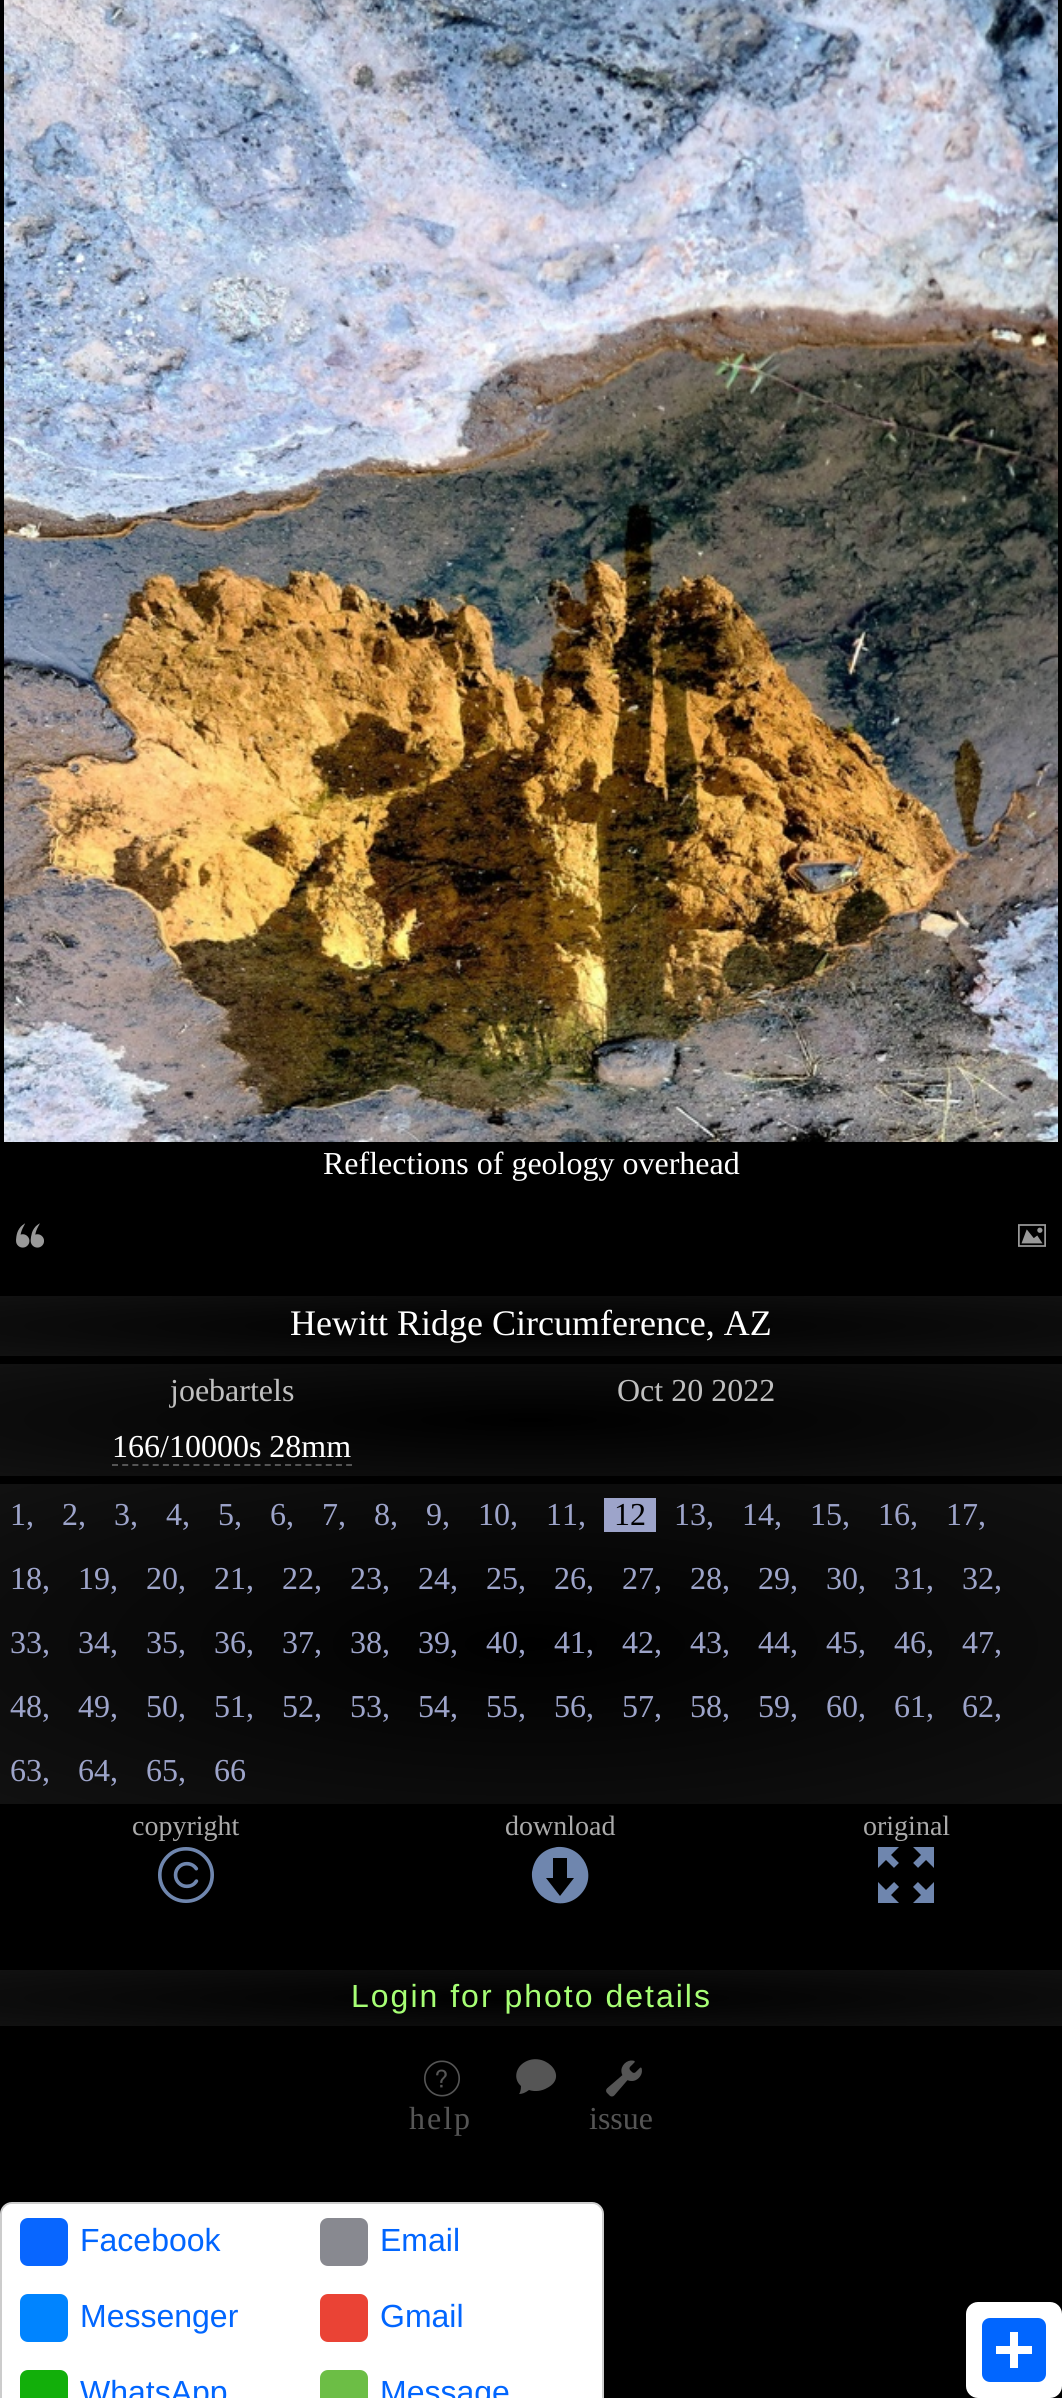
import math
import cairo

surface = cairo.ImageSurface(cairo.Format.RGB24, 1062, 2398)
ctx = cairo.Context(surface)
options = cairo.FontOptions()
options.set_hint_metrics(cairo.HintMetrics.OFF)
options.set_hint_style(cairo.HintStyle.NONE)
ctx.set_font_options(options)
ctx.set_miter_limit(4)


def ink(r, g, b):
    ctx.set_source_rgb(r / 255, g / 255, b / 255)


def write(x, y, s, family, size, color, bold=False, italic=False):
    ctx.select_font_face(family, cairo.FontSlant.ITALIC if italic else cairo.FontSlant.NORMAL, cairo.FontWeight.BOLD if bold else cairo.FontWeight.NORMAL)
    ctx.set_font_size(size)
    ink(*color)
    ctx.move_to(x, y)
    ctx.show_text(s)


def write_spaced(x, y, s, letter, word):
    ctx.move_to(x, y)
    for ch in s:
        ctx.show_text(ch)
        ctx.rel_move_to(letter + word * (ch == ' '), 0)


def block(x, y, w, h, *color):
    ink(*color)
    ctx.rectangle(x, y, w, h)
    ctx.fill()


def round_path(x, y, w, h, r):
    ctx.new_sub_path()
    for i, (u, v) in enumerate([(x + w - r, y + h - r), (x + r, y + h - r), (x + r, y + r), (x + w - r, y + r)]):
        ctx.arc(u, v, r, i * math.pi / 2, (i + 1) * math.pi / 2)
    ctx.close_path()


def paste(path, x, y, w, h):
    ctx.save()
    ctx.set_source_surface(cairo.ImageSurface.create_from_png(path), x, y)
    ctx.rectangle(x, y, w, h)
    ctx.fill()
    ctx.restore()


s1 = dict(family="Liberation Serif", size=32, color=(255, 255, 255))
s2 = dict(family="Liberation Serif", size=36, color=(255, 255, 255))
s3 = dict(family="Liberation Serif", size=32, color=(192, 192, 192))
s4 = dict(family="Liberation Serif", size=32, color=(157, 164, 202))
s5 = dict(family="Liberation Serif", size=32, color=(0, 0, 0))
s6 = dict(family="Liberation Serif", size=28, color=(170, 170, 170))
s7 = dict(family="Liberation Serif", size=32, color=(85, 85, 85))
s8 = dict(family="Liberation Sans", size=32, color=(1, 102, 255))

ink(0, 0, 0)
ctx.paint()
paste("pic1.png", 4, 0, 1054, 1142)
write(323, 1174, "Reflections of geology overhead", **s1)
paste("pic2.png", 16, 1223, 28, 25)
paste("pic3.png", 1018, 1224, 28, 23)
gradient = cairo.RadialGradient(0, 0, 0, 0, 0, 1)
gradient.set_matrix(cairo.Matrix(1 / 751, 0, 0, 1 / 42, -1 * 531 / 751, -1 * 1326 / 42))
gradient.add_color_stop_rgba(0, 0, 0, 0, 1)
gradient.add_color_stop_rgba(1, 0.067, 0.067, 0.067, 1)
ctx.set_source(gradient)
ctx.rectangle(0, 1296, 1062, 60)
ctx.fill()
write(290, 1335, "Hewitt Ridge Circumference, AZ", **s2)
gradient = cairo.RadialGradient(0, 0, 0, 0, 0, 1)
gradient.set_matrix(cairo.Matrix(1 / 751, 0, 0, 1 / 79, -1 * 531 / 751, -1 * 1420 / 79))
gradient.add_color_stop_rgba(0, 0, 0, 0, 1)
gradient.add_color_stop_rgba(1, 0.067, 0.067, 0.067, 1)
ctx.set_source(gradient)
ctx.rectangle(0, 1364, 1062, 112)
ctx.fill()
write(170, 1401, "joebartels", **s3)
write(617, 1401, "Oct 20 2022", **s3)
write(112, 1457, "166/10000s 28mm", **s1)
ctx.new_path()
ctx.move_to(112, 1465)
ctx.line_to(352, 1465)
ink(85, 85, 85)
ctx.set_dash([6, 4.18])
ctx.stroke()
gradient = cairo.RadialGradient(0, 0, 0, 0, 0, 1)
gradient.set_matrix(cairo.Matrix(1 / 751, 0, 0, 1 / 226, -1 * 531 / 751, -1 * 1644 / 226))
gradient.add_color_stop_rgba(0, 0, 0, 0, 1)
gradient.add_color_stop_rgba(1, 0.067, 0.067, 0.067, 1)
ctx.set_source(gradient)
ctx.rectangle(0, 1484, 1062, 320)
ctx.fill()
write(10, 1525, "1,", **s4)
write(62, 1525, "2,", **s4)
write(114, 1525, "3,", **s4)
write(166, 1525, "4,", **s4)
write(218, 1525, "5,", **s4)
write(270, 1525, "6,", **s4)
write(322, 1525, "7,", **s4)
write(374, 1525, "8,", **s4)
write(426, 1525, "9,", **s4)
write(478, 1525, "10,", **s4)
write(546, 1525, "11,", **s4)
block(604, 1498, 52, 34, 157, 164, 202)
write(614, 1525, "12", **s5)
write(674, 1525, "13,", **s4)
write(742, 1525, "14,", **s4)
write(810, 1525, "15,", **s4)
write(878, 1525, "16,", **s4)
write(946, 1525, "17,", **s4)
write(10, 1589, "18,", **s4)
write(78, 1589, "19,", **s4)
write(146, 1589, "20,", **s4)
write(214, 1589, "21,", **s4)
write(282, 1589, "22,", **s4)
write(350, 1589, "23,", **s4)
write(418, 1589, "24,", **s4)
write(486, 1589, "25,", **s4)
write(554, 1589, "26,", **s4)
write(622, 1589, "27,", **s4)
write(690, 1589, "28,", **s4)
write(758, 1589, "29,", **s4)
write(826, 1589, "30,", **s4)
write(894, 1589, "31,", **s4)
write(962, 1589, "32,", **s4)
write(10, 1653, "33,", **s4)
write(78, 1653, "34,", **s4)
write(146, 1653, "35,", **s4)
write(214, 1653, "36,", **s4)
write(282, 1653, "37,", **s4)
write(350, 1653, "38,", **s4)
write(418, 1653, "39,", **s4)
write(486, 1653, "40,", **s4)
write(554, 1653, "41,", **s4)
write(622, 1653, "42,", **s4)
write(690, 1653, "43,", **s4)
write(758, 1653, "44,", **s4)
write(826, 1653, "45,", **s4)
write(894, 1653, "46,", **s4)
write(962, 1653, "47,", **s4)
write(10, 1717, "48,", **s4)
write(78, 1717, "49,", **s4)
write(146, 1717, "50,", **s4)
write(214, 1717, "51,", **s4)
write(282, 1717, "52,", **s4)
write(350, 1717, "53,", **s4)
write(418, 1717, "54,", **s4)
write(486, 1717, "55,", **s4)
write(554, 1717, "56,", **s4)
write(622, 1717, "57,", **s4)
write(690, 1717, "58,", **s4)
write(758, 1717, "59,", **s4)
write(826, 1717, "60,", **s4)
write(894, 1717, "61,", **s4)
write(962, 1717, "62,", **s4)
write(10, 1781, "63,", **s4)
write(78, 1781, "64,", **s4)
write(146, 1781, "65,", **s4)
write(214, 1781, "66", **s4)
write(132, 1835, "copyright", **s6)
write(505, 1835, "download", **s6)
write(863, 1835, "original", **s6)
paste("pic4.png", 158, 1847, 56, 56)
ink(111, 134, 174)
ctx.new_path()
ctx.move_to(540, 1855)
ctx.curve_to(545, 1850, 551, 1848, 557, 1847)
ctx.curve_to(583, 1845, 599, 1876, 580, 1895)
ctx.curve_to(561, 1914, 530, 1898, 532, 1872)
ctx.curve_to(533, 1866, 535, 1860, 540, 1855)
ctx.close_path()
ctx.move_to(560, 1896)
ctx.line_to(574, 1878)
ctx.line_to(567, 1878)
ctx.line_to(567, 1858)
ctx.line_to(553, 1858)
ctx.line_to(553, 1878)
ctx.line_to(546, 1878)
ctx.close_path()
ctx.fill()
paste("pic5.png", 878, 1847, 56, 56)
gradient = cairo.RadialGradient(0, 0, 0, 0, 0, 1)
gradient.set_matrix(cairo.Matrix(1 / 751, 0, 0, 1 / 40, -1 * 531 / 751, -1 * 1998 / 40))
gradient.add_color_stop_rgba(0, 0, 0, 0, 1)
gradient.add_color_stop_rgba(1, 0.067, 0.067, 0.067, 1)
ctx.set_source(gradient)
ctx.rectangle(0, 1970, 1062, 56)
ctx.fill()
ctx.select_font_face("Liberation Sans")
ctx.set_font_size(32)
ink(167, 255, 117)
write_spaced(351, 2007, "Login for photo details", 2, 0)
paste("pic6.png", 424, 2060, 36, 37)
ink(85, 85, 85)
ctx.new_path()
ctx.move_to(522, 2064)
ctx.curve_to(542, 2048, 571, 2076, 547, 2088)
ctx.curve_to(542, 2091, 535, 2092, 529, 2090)
ctx.curve_to(525, 2093, 522, 2094, 519, 2094)
ctx.curve_to(520, 2093, 521, 2090, 521, 2086)
ctx.curve_to(514, 2080, 515, 2070, 522, 2064)
ctx.close_path()
ctx.fill()
paste("pic7.png", 606, 2060, 36, 37)
ctx.select_font_face("Liberation Serif")
write_spaced(409, 2129, "help", 2, 0)
write(589, 2129, "issue", **s7)
ink(255, 255, 255)
round_path(1, 2203, 602, 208, 11)
ctx.fill_preserve()
ink(204, 204, 204)
ctx.set_dash([])
ctx.stroke()
ink(255, 255, 255)
ctx.new_path()
ctx.move_to(12, 2204)
ctx.curve_to(10, 2204, 8, 2205, 6, 2206)
ctx.line_to(300, 2206)
ctx.line_to(300, 2278)
ctx.line_to(4, 2278)
ctx.line_to(4, 2208)
ctx.curve_to(3, 2210, 2, 2212, 2, 2214)
ctx.line_to(2, 2280)
ctx.line_to(302, 2280)
ctx.line_to(302, 2204)
ctx.close_path()
ctx.fill()
ink(8, 102, 255)
round_path(20, 2218, 48, 48, 8)
ctx.fill()
write(80, 2251, "Facebook", **s8)
ink(255, 255, 255)
ctx.new_path()
ctx.move_to(302, 2204)
ctx.line_to(302, 2280)
ctx.line_to(602, 2280)
ctx.line_to(602, 2214)
ctx.curve_to(602, 2212, 601, 2210, 600, 2208)
ctx.line_to(600, 2278)
ctx.line_to(304, 2278)
ctx.line_to(304, 2206)
ctx.line_to(598, 2206)
ctx.curve_to(596, 2205, 594, 2204, 592, 2204)
ctx.close_path()
ctx.fill()
ink(136, 137, 144)
round_path(320, 2218, 48, 48, 8)
ctx.fill()
write(380, 2251, "Email", **s8)
ink(0, 132, 255)
round_path(20, 2294, 48, 48, 8)
ctx.fill()
write(80, 2327, "Messenger", **s8)
ink(234, 67, 53)
round_path(320, 2294, 48, 48, 8)
ctx.fill()
write(380, 2327, "Gmail", **s8)
ink(18, 175, 10)
round_path(20, 2370, 48, 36, 8)
ctx.fill()
write(80, 2403, "WhatsApp", **s8)
ink(108, 190, 69)
round_path(320, 2370, 48, 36, 8)
ctx.fill()
write(380, 2403, "Message", **s8)
ink(255, 255, 255)
round_path(966, 2302, 96, 96, 12)
ctx.fill()
ink(1, 102, 255)
round_path(982, 2318, 64, 64, 8)
ctx.fill()
block(1010, 2332, 8, 36, 255, 255, 255)
block(996, 2346, 36, 8, 255, 255, 255)
surface.write_to_png("screenshot.png")
